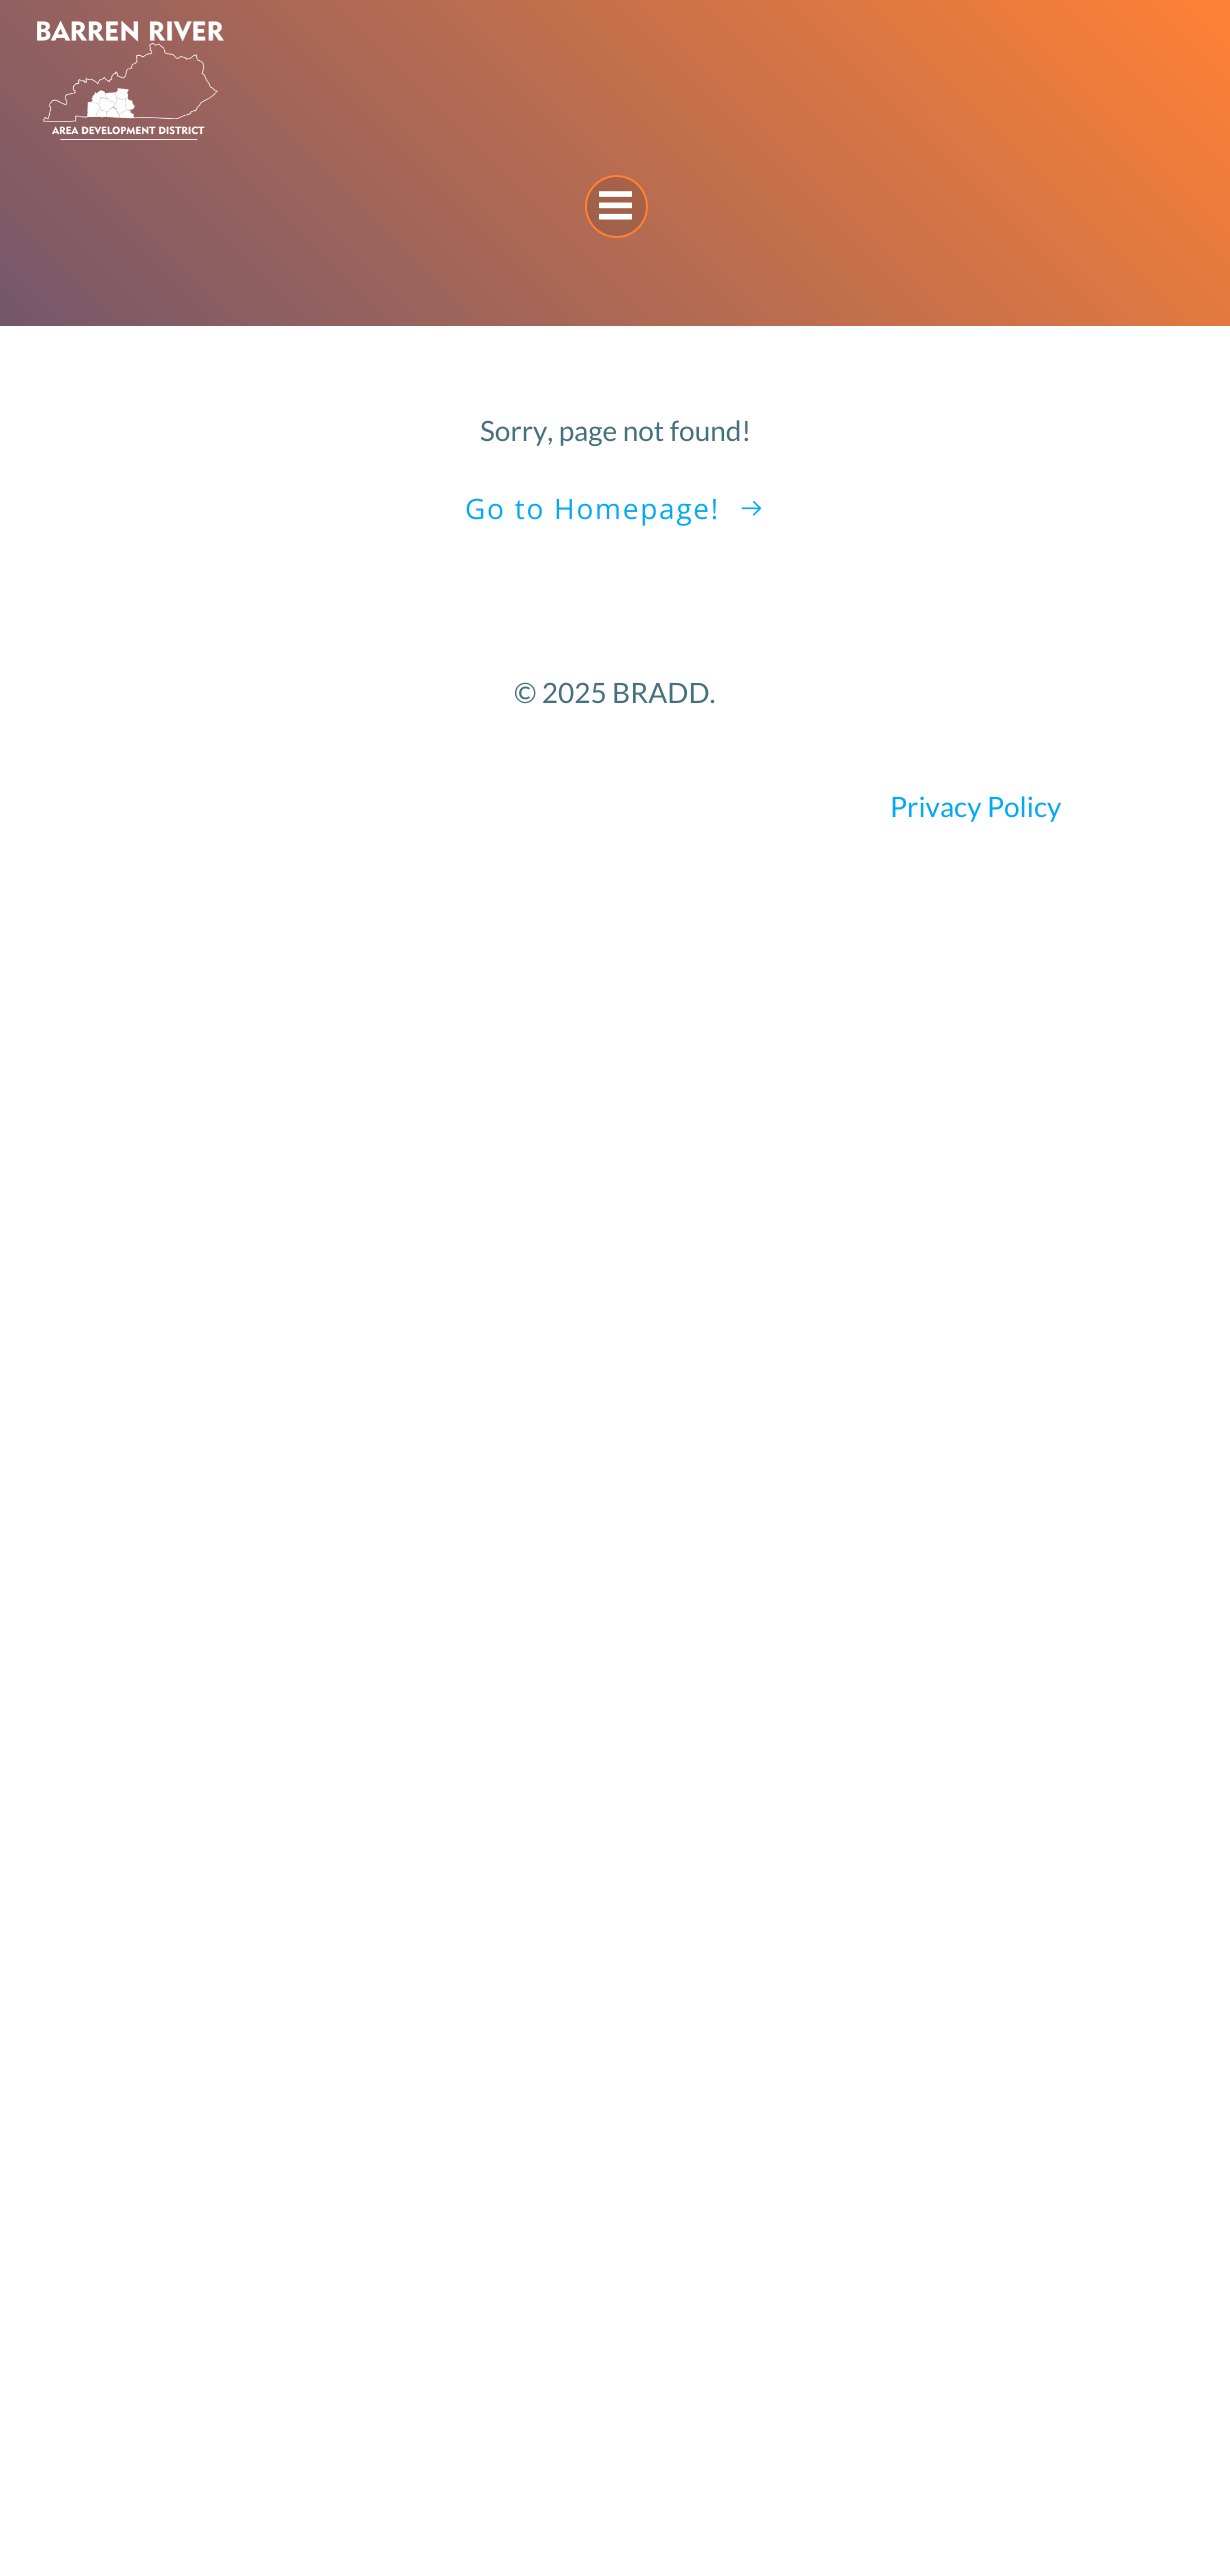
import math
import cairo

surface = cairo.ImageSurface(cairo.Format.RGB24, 1230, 2568)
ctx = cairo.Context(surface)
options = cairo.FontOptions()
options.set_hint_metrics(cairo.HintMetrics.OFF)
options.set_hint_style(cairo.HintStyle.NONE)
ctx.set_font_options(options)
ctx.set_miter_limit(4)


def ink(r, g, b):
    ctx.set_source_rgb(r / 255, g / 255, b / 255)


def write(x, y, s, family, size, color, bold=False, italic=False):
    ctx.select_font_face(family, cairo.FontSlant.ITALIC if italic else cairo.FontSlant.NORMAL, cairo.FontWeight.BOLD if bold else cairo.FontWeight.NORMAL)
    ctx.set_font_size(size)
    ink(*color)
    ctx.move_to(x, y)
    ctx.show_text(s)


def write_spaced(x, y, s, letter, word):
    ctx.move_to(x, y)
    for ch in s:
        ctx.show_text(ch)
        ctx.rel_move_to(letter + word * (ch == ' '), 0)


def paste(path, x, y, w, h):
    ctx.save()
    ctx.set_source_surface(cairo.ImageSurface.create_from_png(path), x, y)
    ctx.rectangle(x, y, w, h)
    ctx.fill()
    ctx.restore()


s1 = dict(family="Lato", size=28, color=(70, 112, 127))
s2 = dict(family="Lato", size=28, color=(3, 169, 244))

ink(255, 255, 255)
ctx.paint()
gradient = cairo.LinearGradient(-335, 2234, 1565, 335)
gradient.add_color_stop_rgba(0.25, 0, 0.2, 0.6, 1)
gradient.add_color_stop_rgba(1, 1, 0.51, 0.204, 1)
ctx.set_source(gradient)
ctx.rectangle(0, 0, 1230, 326)
ctx.fill()
paste("pic1.png", 37, 20, 187, 120)
ctx.set_source_rgba(0, 0, 0, 0.1)
ctx.arc(616.5, 206.5, 30.5, 0, 2 * math.pi)
ctx.fill_preserve()
ink(255, 130, 52)
ctx.stroke()
paste("pic2.png", 599, 191, 33, 29)
write(480, 441, "Sorry, page not found!", **s1)
ctx.select_font_face("Open Sans")
ink(3, 169, 244)
write_spaced(465, 519, "Go to Homepage!", 1.75, 0)
paste("pic3.png", 741, 500, 21, 16)
write(514, 703, "© 2025 BRADD.", **s1)
write(890, 817, "Privacy Policy", **s2)
surface.write_to_png("screenshot.png")
